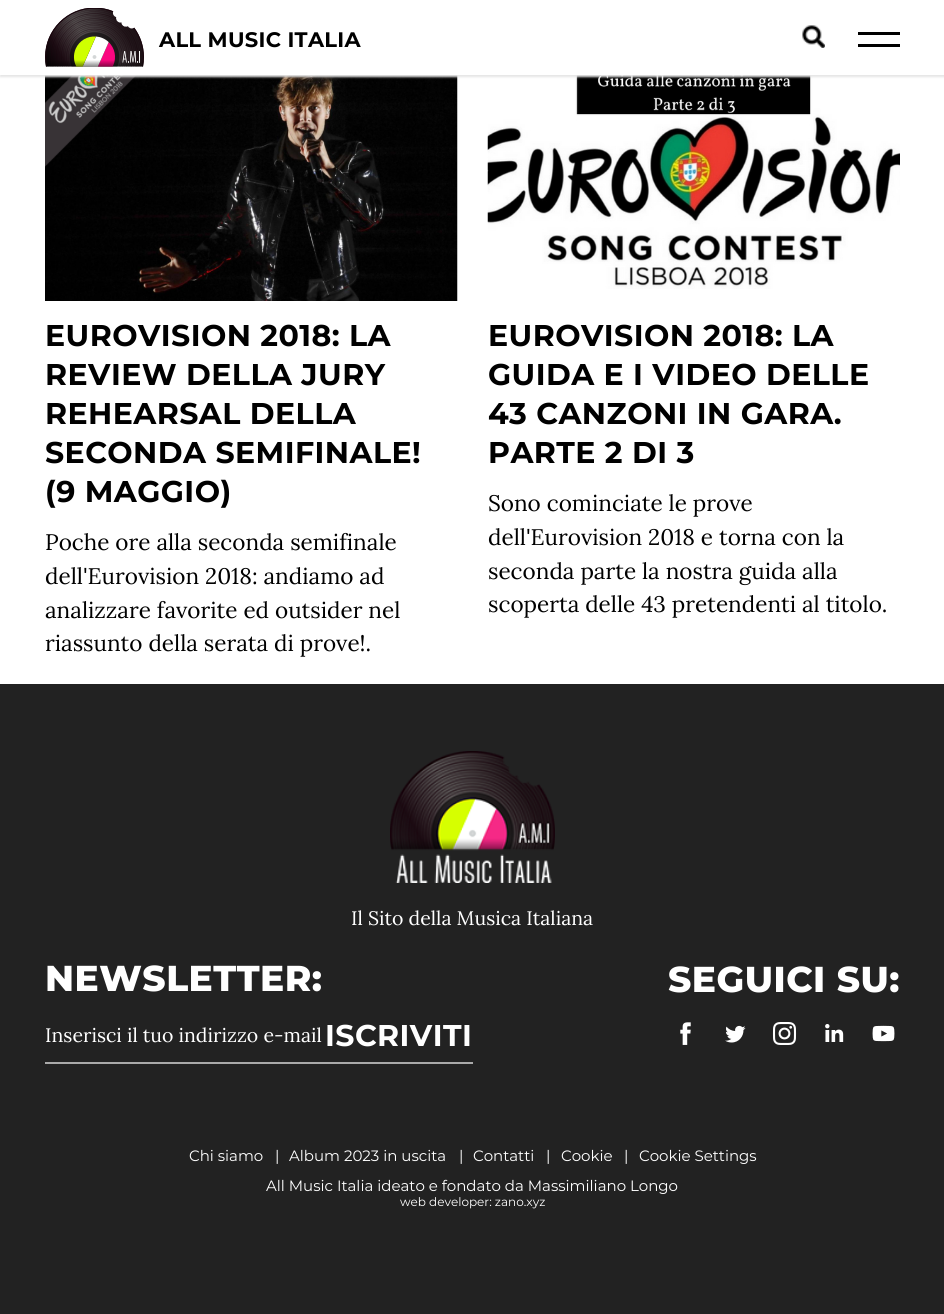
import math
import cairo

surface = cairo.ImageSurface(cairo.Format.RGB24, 944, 1314)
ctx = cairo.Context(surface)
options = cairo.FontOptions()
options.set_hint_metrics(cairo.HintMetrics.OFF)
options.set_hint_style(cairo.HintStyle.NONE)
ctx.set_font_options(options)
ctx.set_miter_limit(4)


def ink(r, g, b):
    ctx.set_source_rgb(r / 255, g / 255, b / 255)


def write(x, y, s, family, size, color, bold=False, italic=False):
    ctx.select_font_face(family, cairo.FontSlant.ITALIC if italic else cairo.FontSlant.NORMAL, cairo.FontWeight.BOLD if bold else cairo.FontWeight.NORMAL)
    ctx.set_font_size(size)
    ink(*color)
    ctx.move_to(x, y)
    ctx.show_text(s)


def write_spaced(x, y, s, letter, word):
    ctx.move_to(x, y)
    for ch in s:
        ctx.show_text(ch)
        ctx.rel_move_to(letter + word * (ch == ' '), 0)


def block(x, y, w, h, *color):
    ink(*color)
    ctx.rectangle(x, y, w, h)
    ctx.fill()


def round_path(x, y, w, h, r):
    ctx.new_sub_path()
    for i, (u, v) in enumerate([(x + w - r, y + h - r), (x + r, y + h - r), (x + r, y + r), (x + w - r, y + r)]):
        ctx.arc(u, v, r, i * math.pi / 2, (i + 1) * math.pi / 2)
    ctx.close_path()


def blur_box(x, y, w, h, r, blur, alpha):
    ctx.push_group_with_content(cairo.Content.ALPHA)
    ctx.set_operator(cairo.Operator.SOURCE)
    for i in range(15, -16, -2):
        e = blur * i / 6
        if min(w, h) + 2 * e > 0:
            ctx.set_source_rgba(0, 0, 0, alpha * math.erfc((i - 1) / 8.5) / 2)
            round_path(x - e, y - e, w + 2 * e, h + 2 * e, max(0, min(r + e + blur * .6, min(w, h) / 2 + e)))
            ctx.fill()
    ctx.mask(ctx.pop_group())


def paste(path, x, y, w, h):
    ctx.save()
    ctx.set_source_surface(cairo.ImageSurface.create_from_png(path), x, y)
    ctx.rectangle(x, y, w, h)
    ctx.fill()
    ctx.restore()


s1 = dict(family="Lora", size=22.5, color=(0, 0, 0))
s2 = dict(family="Lora", size=19.5, color=(255, 255, 255))
s3 = dict(family="Montserrat", size=15, color=(255, 255, 255))
s4 = dict(family="Montserrat", size=12, color=(255, 255, 255))

ink(34, 34, 34)
ctx.paint()
block(0, 75, 944, 609, 255, 255, 255)
paste("pic3.png", 45, 75, 413, 226)
paste("pic4.png", 487, 75, 413, 214)
ink(229, 229, 229)
blur_box(0, 2, 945, 75, 0, 1, 1)
block(0, 0, 944, 75, 255, 255, 255)
paste("pic1.png", 45, 8, 99, 59)
ctx.select_font_face("Montserrat", cairo.FontSlant.NORMAL, cairo.FontWeight.BOLD)
ctx.set_font_size(21)
ink(0, 0, 0)
write_spaced(159, 47, "ALL MUSIC ITALIA", 0.3, 0)
paste("pic2.png", 802, 25, 23, 23)
block(858, 32, 42, 3, 0, 0, 0)
block(858, 44, 42, 3, 0, 0, 0)
ctx.set_font_size(30)
write_spaced(45, 346, "EUROVISION 2018: LA", 0.45, 0)
write_spaced(45, 385, "REVIEW DELLA JURY", 0.45, 0)
write_spaced(45, 424, "REHEARSAL DELLA", 0.45, 0)
write_spaced(45, 463, "SECONDA SEMIFINALE!", 0.45, 0)
write_spaced(45, 502, "(9 MAGGIO)", 0.45, 0)
write(45, 550, "Poche ore alla seconda semifinale", **s1)
write(45, 584, "dell'Eurovision 2018: andiamo ad", **s1)
write(45, 618, "analizzare favorite ed outsider nel", **s1)
write(45, 651, "riassunto della serata di prove!.", **s1)
ctx.select_font_face("Montserrat", cairo.FontSlant.NORMAL, cairo.FontWeight.BOLD)
ctx.set_font_size(30)
write_spaced(488, 346, "EUROVISION 2018: LA", 0.45, 0)
write_spaced(488, 385, "GUIDA E I VIDEO DELLE", 0.45, 0)
write_spaced(488, 424, "43 CANZONI IN GARA.", 0.45, 0)
write_spaced(488, 463, "PARTE 2 DI 3", 0.45, 0)
write(488, 511, "Sono cominciate le prove", **s1)
write(488, 545, "dell'Eurovision 2018 e torna con la", **s1)
write(488, 579, "seconda parte la nostra guida alla", **s1)
write(488, 612, "scoperta delle 43 pretendenti al titolo.", **s1)
paste("pic5.png", 390, 751, 165, 132)
write(351, 925, "Il Sito della Musica Italiana", **s2)
ctx.select_font_face("Montserrat ExtraBold")
ctx.set_font_size(36)
write_spaced(45, 991, "NEWSLETTER:", 0.5, 0)
block(45, 1062, 428, 2, 170, 170, 170)
write(45, 1042, "Inserisci il tuo indirizzo e-mail", **s2)
ctx.select_font_face("Montserrat", cairo.FontSlant.NORMAL, cairo.FontWeight.BOLD)
ctx.set_font_size(30)
write_spaced(325, 1046, "ISCRIVITI", 0.45, 0)
ctx.select_font_face("Montserrat ExtraBold")
ctx.set_font_size(36)
write_spaced(668, 992, "SEGUICI SU:", 0.5, 0)
paste("pic6.png", 680, 1022, 11, 23)
paste("pic7.png", 725, 1025, 21, 18)
paste("pic8.png", 772, 1022, 25, 23)
paste("pic9.png", 825, 1024, 19, 18)
paste("pic10.png", 872, 1025, 23, 17)
write(189, 1161, "Chi siamo", **s3)
write(275, 1161, "|", **s3)
write(289, 1161, "Album 2023 in uscita", **s3)
write(459, 1161, "|", **s3)
write(473, 1161, "Contatti", **s3)
write(546, 1161, "|", **s3)
write(561, 1161, "Cookie", **s3)
write(624, 1161, "|", **s3)
write(639, 1161, "Cookie Settings", **s3)
write(266, 1191, "All Music Italia ideato e fondato da Massimiliano Longo", **s3)
write(400, 1206, "web developer: zano.xyz", **s4)
surface.write_to_png("screenshot.png")
